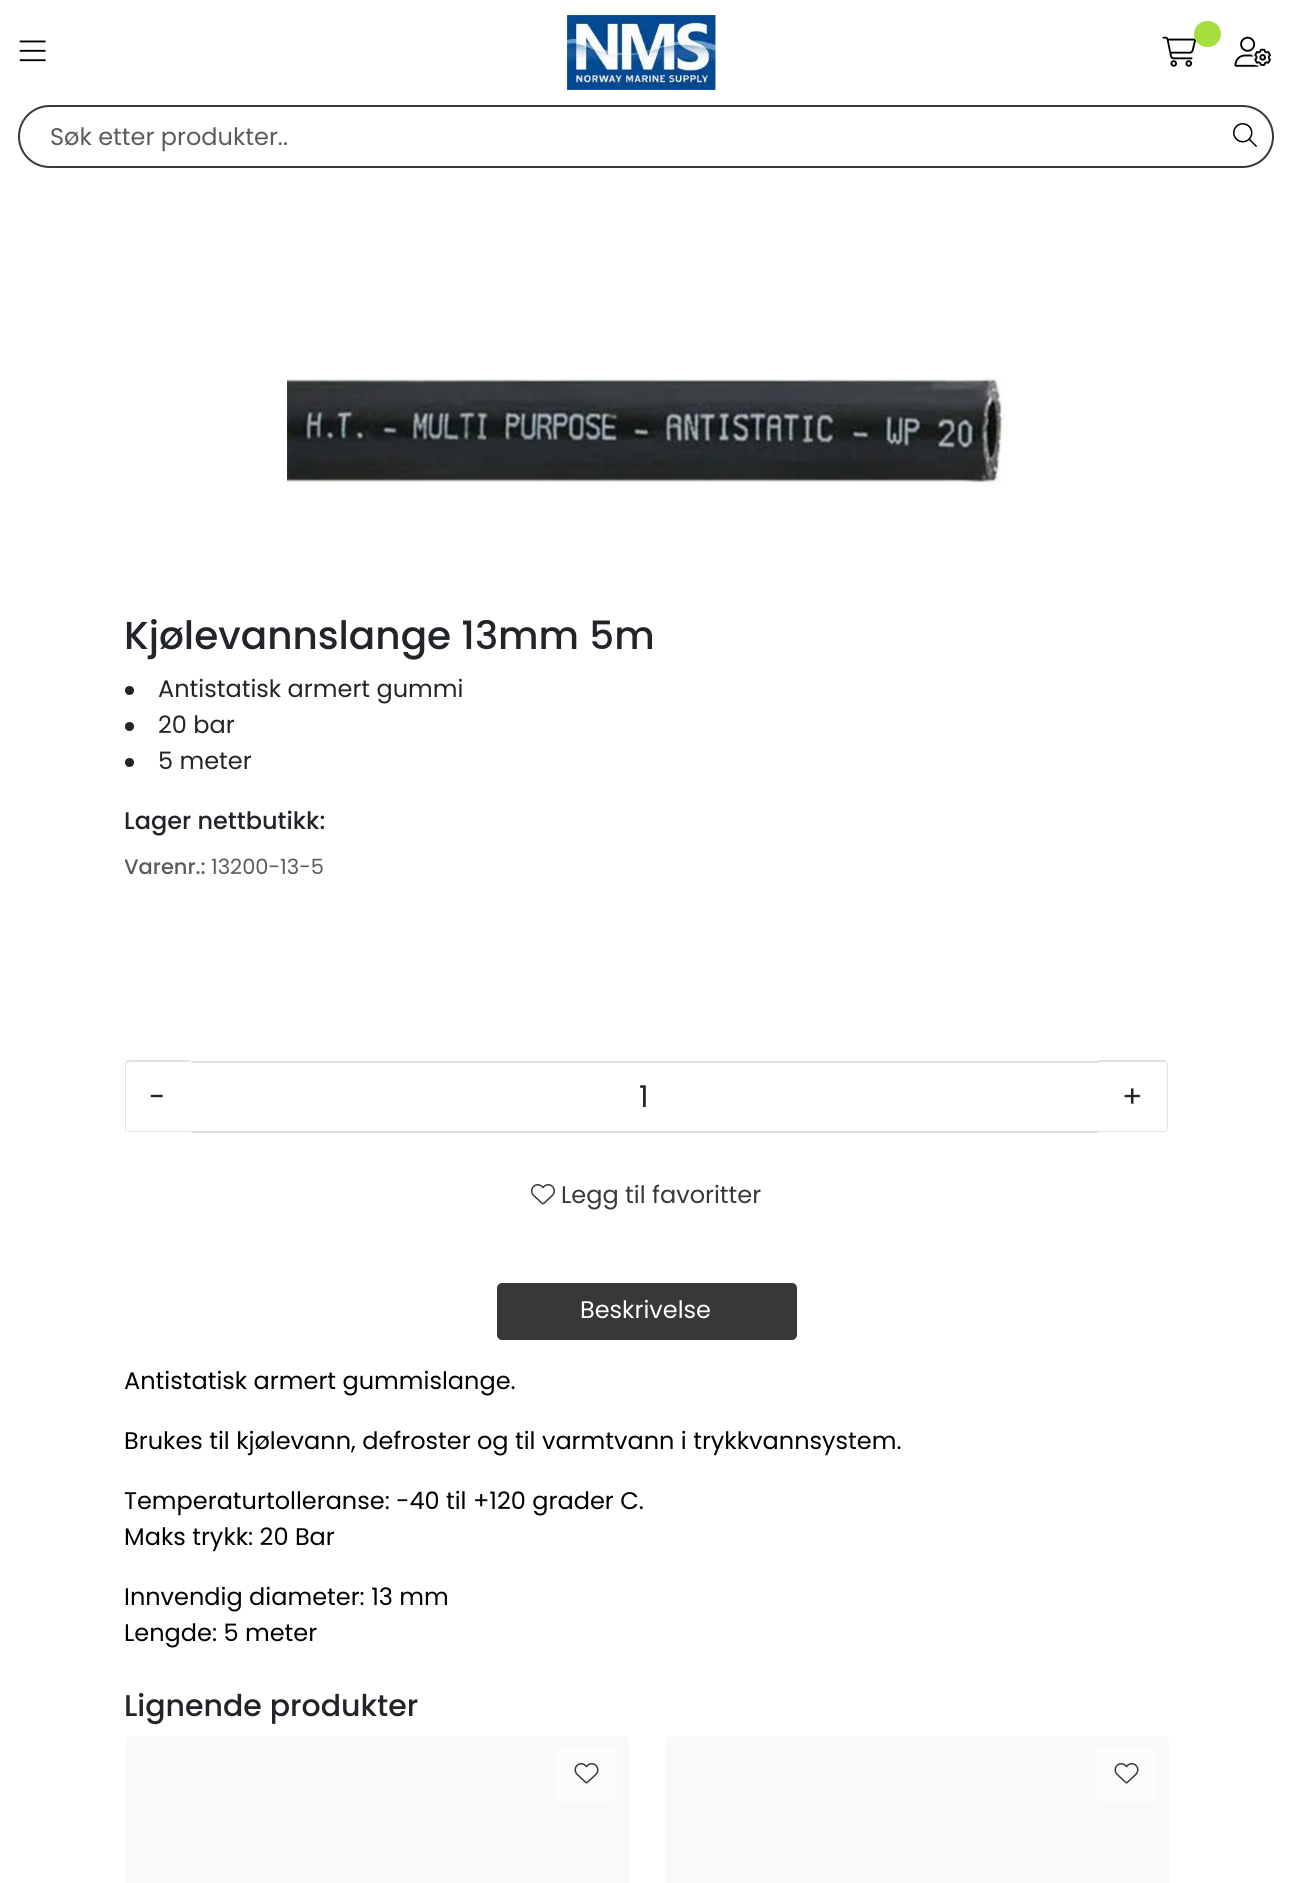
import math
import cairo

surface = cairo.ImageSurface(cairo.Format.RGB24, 1291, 1883)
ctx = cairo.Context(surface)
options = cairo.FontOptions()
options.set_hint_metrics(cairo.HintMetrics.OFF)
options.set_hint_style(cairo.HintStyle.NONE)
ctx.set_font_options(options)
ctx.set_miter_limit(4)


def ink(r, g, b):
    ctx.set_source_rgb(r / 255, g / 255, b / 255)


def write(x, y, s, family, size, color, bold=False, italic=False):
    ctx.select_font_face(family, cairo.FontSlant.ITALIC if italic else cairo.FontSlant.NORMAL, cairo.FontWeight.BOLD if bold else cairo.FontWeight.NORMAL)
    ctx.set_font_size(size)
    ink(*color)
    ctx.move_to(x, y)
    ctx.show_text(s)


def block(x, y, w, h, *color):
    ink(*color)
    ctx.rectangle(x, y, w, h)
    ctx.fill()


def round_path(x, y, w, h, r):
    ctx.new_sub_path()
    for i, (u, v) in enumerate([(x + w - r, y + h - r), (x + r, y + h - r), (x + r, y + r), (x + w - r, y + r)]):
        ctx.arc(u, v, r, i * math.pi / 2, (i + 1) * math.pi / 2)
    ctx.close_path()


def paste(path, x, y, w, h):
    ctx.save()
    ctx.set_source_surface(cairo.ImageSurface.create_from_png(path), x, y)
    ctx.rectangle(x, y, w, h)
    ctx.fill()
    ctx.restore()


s1 = dict(family="Poppins", size=24, color=(89, 92, 95))
s2 = dict(family="Poppins Medium", size=39, color=(33, 37, 41))
s3 = dict(family="Poppins", size=24, color=(33, 37, 41))
s4 = dict(family="Poppins Medium", size=24, color=(33, 37, 41))
s5 = dict(family="Poppins Medium", size=21, color=(89, 92, 95))
s6 = dict(family="Poppins", size=21, color=(89, 92, 95))
s7 = dict(family="Poppins", size=30, color=(33, 37, 41))
s8 = dict(family="Poppins", size=24, color=(56, 56, 56))
s9 = dict(family="Poppins", size=24, color=(255, 255, 255))
s10 = dict(family="Poppins", size=24, color=(0, 0, 0))
s11 = dict(family="Poppins Medium", size=30, color=(33, 37, 41))

ink(255, 255, 255)
ctx.paint()
paste("pic1.png", 19, 40, 27, 22)
paste("pic2.png", 567, 15, 149, 75)
paste("pic3.png", 1162, 36, 34, 31)
ink(164, 223, 63)
round_path(1194, 21, 27, 26, 13)
ctx.fill()
paste("pic4.png", 1234, 36, 37, 31)
round_path(19, 106, 1254, 61, 30.5)
ink(56, 56, 56)
ctx.stroke()
write(50, 145, "Søk etter produkter..", **s1)
paste("pic5.png", 1233, 123, 24, 24)
paste("pic6.png", 287, 378, 720, 108)
write(124, 649, "Kjølevannslange 13mm 5m", **s2)
ctx.new_path()
ctx.arc(129.5, 690.5, 4.5, 0, 2 * math.pi)
ctx.fill()
write(158, 697, "Antistatisk armert gummi", **s3)
ctx.new_path()
ctx.arc(129.5, 726.5, 4.5, 0, 2 * math.pi)
ctx.fill()
write(158, 733, "20 bar", **s3)
ctx.new_path()
ctx.arc(129.5, 762.5, 4.5, 0, 2 * math.pi)
ctx.fill()
write(158, 769, "5 meter", **s3)
write(124, 829, "Lager nettbutikk:", **s4)
ctx.save()
ctx.rectangle(125, 602, 1044, 657)
ctx.clip()
write(124, 874, "Varenr.:", **s5)
ctx.restore()
write(211, 874, "13200-13-5", **s6)
block(189, 1061, 911, 2, 222, 226, 230)
block(189, 1131, 911, 2, 222, 226, 230)
ink(255, 255, 255)
ctx.new_path()
ctx.move_to(130, 1061)
ctx.line_to(191, 1061)
ctx.line_to(191, 1133)
ctx.line_to(130, 1133)
ctx.curve_to(127, 1133, 125, 1131, 125, 1128)
ctx.line_to(125, 1066)
ctx.curve_to(125, 1063, 127, 1061, 130, 1061)
ctx.close_path()
ctx.fill()
ctx.save()
ctx.rectangle(125, 602, 1044, 657)
ctx.clip()
ink(222, 226, 230)
ctx.set_fill_rule(cairo.FillRule.EVEN_ODD)
ctx.new_path()
ctx.move_to(129, 1060)
ctx.line_to(190, 1060)
ctx.line_to(190, 1132)
ctx.line_to(129, 1132)
ctx.curve_to(127, 1132, 124, 1130, 124, 1128)
ctx.line_to(124, 1065)
ctx.curve_to(124, 1063, 127, 1060, 129, 1060)
ctx.close_path()
ctx.move_to(129, 1062)
ctx.line_to(190, 1062)
ctx.line_to(190, 1131)
ctx.line_to(129, 1131)
ctx.curve_to(127, 1131, 126, 1130, 126, 1128)
ctx.line_to(126, 1065)
ctx.curve_to(126, 1063, 127, 1062, 129, 1062)
ctx.close_path()
ctx.fill()
ctx.restore()
write(149, 1107, "-", **s7)
write(639, 1107, "1", **s7)
ink(255, 255, 255)
ctx.new_path()
ctx.move_to(1098, 1061)
ctx.line_to(1164, 1061)
ctx.curve_to(1167, 1061, 1169, 1063, 1169, 1066)
ctx.line_to(1169, 1128)
ctx.curve_to(1169, 1131, 1167, 1133, 1164, 1133)
ctx.line_to(1098, 1133)
ctx.close_path()
ctx.fill()
ink(222, 226, 230)
ctx.set_fill_rule(cairo.FillRule.EVEN_ODD)
ctx.new_path()
ctx.move_to(1098, 1060)
ctx.line_to(1164, 1060)
ctx.curve_to(1166, 1060, 1168, 1063, 1168, 1065)
ctx.line_to(1168, 1128)
ctx.curve_to(1168, 1130, 1166, 1132, 1164, 1132)
ctx.line_to(1098, 1132)
ctx.close_path()
ctx.move_to(1098, 1062)
ctx.line_to(1164, 1062)
ctx.curve_to(1166, 1062, 1167, 1063, 1167, 1065)
ctx.line_to(1167, 1128)
ctx.curve_to(1167, 1130, 1166, 1131, 1164, 1131)
ctx.line_to(1098, 1131)
ctx.close_path()
ctx.fill()
write(1122, 1107, "+", **s7)
paste("pic7.png", 531, 1184, 24, 21)
write(561, 1203, "Legg til favoritter", **s8)
round_path(498, 1284, 298, 55, 4)
ctx.fill_preserve()
ctx.stroke()
write(580, 1318, "Beskrivelse", **s9)
write(124, 1389, "Antistatisk armert gummislange.", **s10)
write(124, 1449, "Brukes til kjølevann, defroster og til varmtvann i trykkvannsystem.", **s10)
write(124, 1509, "Temperaturtolleranse: -40 til +120 grader C.", **s10)
write(124, 1545, "Maks trykk: 20 Bar", **s10)
write(124, 1605, "Innvendig diameter: 13 mm", **s10)
write(124, 1641, "Lengde: 5 meter", **s10)
write(124, 1716, "Lignende produkter", **s11)
ink(248, 249, 250)
round_path(125, 1736, 504, 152, 5)
ctx.fill()
ink(252, 252, 253)
round_path(557, 1748, 60, 54, 5)
ctx.fill()
paste("pic8.png", 574, 1763, 25, 21)
ink(248, 249, 250)
round_path(665, 1736, 504, 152, 5)
ctx.fill()
ink(252, 252, 253)
round_path(1097, 1748, 60, 54, 5)
ctx.fill()
paste("pic8.png", 1114, 1763, 25, 21)
surface.write_to_png("screenshot.png")
